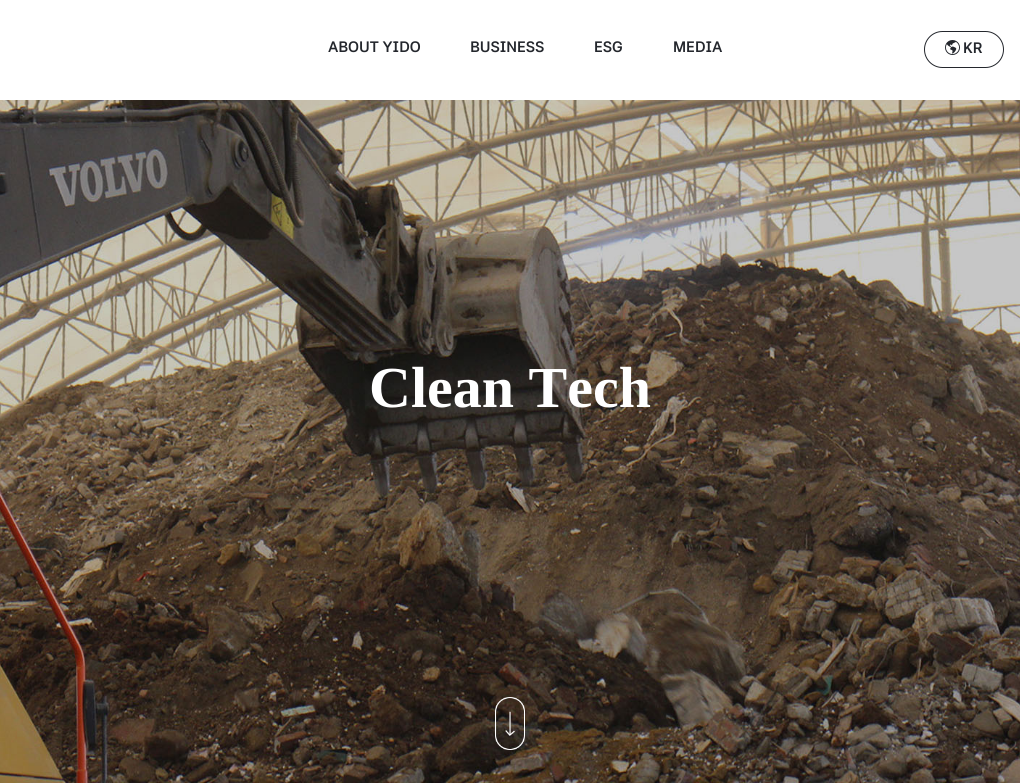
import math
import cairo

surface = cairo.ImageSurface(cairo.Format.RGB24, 1020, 783)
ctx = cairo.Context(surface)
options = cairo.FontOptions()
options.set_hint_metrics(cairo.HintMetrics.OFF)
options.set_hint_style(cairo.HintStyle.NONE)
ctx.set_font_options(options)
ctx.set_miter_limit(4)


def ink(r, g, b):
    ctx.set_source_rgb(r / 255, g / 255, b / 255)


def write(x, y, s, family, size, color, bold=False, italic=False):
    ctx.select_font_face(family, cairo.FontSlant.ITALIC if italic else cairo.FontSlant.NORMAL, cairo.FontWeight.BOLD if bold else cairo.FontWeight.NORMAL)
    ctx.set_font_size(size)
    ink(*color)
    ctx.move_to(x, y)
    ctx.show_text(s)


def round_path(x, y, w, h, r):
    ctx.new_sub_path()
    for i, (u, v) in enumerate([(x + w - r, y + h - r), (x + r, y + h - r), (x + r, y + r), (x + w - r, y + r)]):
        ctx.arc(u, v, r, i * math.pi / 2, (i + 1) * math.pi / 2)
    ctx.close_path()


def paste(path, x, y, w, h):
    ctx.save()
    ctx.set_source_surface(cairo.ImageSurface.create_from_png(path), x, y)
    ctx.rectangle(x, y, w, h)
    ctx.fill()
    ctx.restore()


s1 = dict(family="Asta Sans", size=15, color=(36, 39, 45), bold=True)
s2 = dict(family="Liberation Serif", size=58, color=(255, 255, 255), bold=True)

ink(255, 255, 255)
ctx.paint()
write(328, 52, "ABOUT YIDO", **s1)
write(470, 52, "BUSINESS", **s1)
write(594, 52, "ESG", **s1)
write(673, 52, "MEDIA", **s1)
round_path(924.5, 31.5, 79, 36, 18)
ctx.set_line_width(1)
ctx.stroke()
paste("pic1.png", 945, 40, 15, 15)
write(963, 53, "KR", **s1)
paste("pic2.png", 0, 100, 1020, 683)
write(369, 407, "Clean Tech", **s2)
paste("pic3.png", 495, 697, 30, 53)
surface.write_to_png("screenshot.png")
